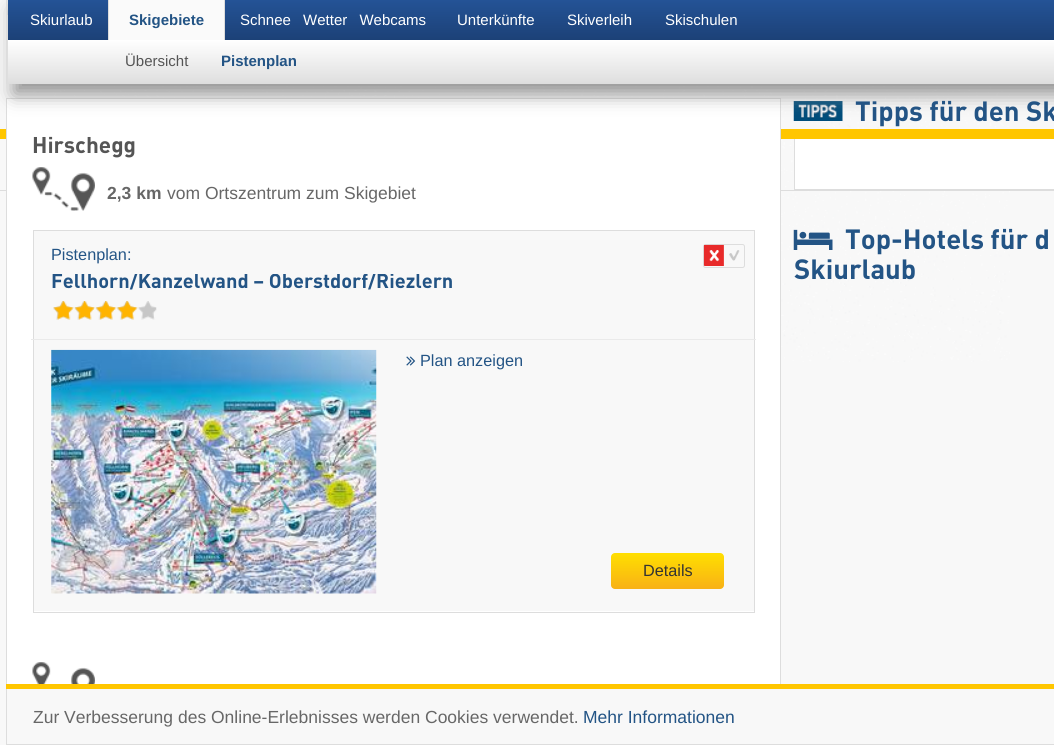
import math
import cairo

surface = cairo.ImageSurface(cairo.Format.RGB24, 1054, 745)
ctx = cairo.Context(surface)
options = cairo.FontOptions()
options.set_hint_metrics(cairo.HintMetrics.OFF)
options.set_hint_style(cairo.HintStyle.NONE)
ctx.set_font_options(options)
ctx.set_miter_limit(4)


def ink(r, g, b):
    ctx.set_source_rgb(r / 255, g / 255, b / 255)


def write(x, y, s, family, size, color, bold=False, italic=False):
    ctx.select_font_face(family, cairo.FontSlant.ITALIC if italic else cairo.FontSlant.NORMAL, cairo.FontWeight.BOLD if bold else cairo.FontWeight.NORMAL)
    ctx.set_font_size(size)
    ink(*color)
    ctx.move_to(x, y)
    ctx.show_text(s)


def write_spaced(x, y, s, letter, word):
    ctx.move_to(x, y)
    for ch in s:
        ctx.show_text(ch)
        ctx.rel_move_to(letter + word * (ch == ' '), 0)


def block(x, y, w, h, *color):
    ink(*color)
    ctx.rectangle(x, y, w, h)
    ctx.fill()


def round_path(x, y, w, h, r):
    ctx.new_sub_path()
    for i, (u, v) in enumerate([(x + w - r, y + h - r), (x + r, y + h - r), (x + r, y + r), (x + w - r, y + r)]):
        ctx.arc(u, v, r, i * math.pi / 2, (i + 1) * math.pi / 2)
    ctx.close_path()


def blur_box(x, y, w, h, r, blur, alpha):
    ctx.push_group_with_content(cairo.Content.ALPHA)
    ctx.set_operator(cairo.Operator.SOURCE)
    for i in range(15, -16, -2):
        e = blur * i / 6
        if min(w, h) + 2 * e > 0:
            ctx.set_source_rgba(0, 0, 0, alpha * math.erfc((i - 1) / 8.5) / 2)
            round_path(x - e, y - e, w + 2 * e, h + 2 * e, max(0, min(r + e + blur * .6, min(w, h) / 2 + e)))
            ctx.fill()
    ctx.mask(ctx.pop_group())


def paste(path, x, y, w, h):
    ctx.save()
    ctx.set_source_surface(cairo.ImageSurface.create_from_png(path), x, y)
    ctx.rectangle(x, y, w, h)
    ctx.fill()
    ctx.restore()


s1 = dict(family="Liberation Sans", size=15, color=(255, 255, 255))
s2 = dict(family="Liberation Sans", size=15, color=(35, 84, 133), bold=True)
s3 = dict(family="Liberation Sans", size=15, color=(85, 85, 85))
s4 = dict(family="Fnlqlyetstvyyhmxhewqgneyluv", size=27.5, color=(35, 84, 133), bold=True)
s5 = dict(family="Fnlqlyetstvyyhmxhewqgneyluv", size=22.5, color=(85, 85, 85), bold=True)
s6 = dict(family="Liberation Sans", size=17.5, color=(103, 103, 103), bold=True)
s7 = dict(family="Liberation Sans", size=17.5, color=(103, 103, 103))
s8 = dict(family="Liberation Sans", size=16.25, color=(35, 84, 133))
s9 = dict(family="Fnlqlyetstvyyhmxhewqgneyluv", size=20, color=(35, 84, 133), bold=True)
s10 = dict(family="Liberation Sans", size=16.25, color=(51, 51, 51))
s11 = dict(family="Liberation Sans", size=17.5, color=(35, 84, 133))

ink(248, 248, 248)
ctx.paint()
paste("pic1.png", 9, 84, 1001, 278)
gradient = cairo.LinearGradient(594, -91, 594, 15)
gradient.add_color_stop_rgba(0, 1, 1, 1, 1)
gradient.add_color_stop_rgba(1, 0.918, 0.918, 0.918, 1)
ctx.set_source(gradient)
ctx.rectangle(7, 0, 1, 15)
ctx.fill()
paste("pic2.png", 793, 101, 50, 20)
block(0, 129, 1054, 10, 255, 198, 0)
block(0, 190, 1054, 1, 221, 221, 221)
block(7, 99, 773, 585, 255, 255, 255)
ctx.rectangle(6.5, 98.5, 774, 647)
ink(221, 221, 221)
ctx.set_line_width(1)
ctx.stroke()
ink(145, 145, 145)
blur_box(14, 10, 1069, 84, 0, 9.5, 1)
block(6, 0, 1, 84, 221, 221, 221)
gradient = cairo.LinearGradient(594, 0, 594, 40)
gradient.add_color_stop_rgba(0, 0.141, 0.325, 0.588, 1)
gradient.add_color_stop_rgba(1, 0.11, 0.255, 0.467, 1)
ctx.set_source(gradient)
ctx.rectangle(8, 0, 1046, 40)
ctx.fill()
write(30, 25, "Skiurlaub", **s1)
block(109, 0, 115, 40, 250, 250, 250)
block(224, 0, 1, 40, 221, 221, 221)
block(108, 0, 1, 40, 221, 221, 221)
write(129, 25, "Skigebiete", **s2)
gradient = cairo.LinearGradient(594, 40, 594, 84)
gradient.add_color_stop_rgba(0, 1, 1, 1, 1)
gradient.add_color_stop_rgba(1, 0.871, 0.871, 0.871, 1)
ctx.set_source(gradient)
ctx.rectangle(8, 40, 1046, 44)
ctx.fill()
write(125, 66, "Übersicht", **s3)
write(221, 66, "Pistenplan", **s2)
ctx.select_font_face("Liberation Sans")
ink(255, 255, 255)
write_spaced(240, 25, "Schnee Wetter Webcams", 0, 8)
write(457, 25, "Unterkünfte", **s1)
write(567, 25, "Skiverleih", **s1)
write(665, 25, "Skischulen", **s1)
write(855, 121, "Tipps für den Sk", **s4)
block(795, 139, 259, 50, 255, 255, 255)
block(794, 189, 260, 1, 221, 221, 221)
block(794, 139, 1, 51, 221, 221, 221)
write(32, 153, "Hirschegg", **s5)
paste("pic3.png", 32, 167, 63, 44)
write(107, 199, "2,3 km", **s6)
write(167, 199, "vom Ortszentrum zum Skigebiet", **s7)
ctx.rectangle(33.5, 230.5, 721, 382)
ink(221, 221, 221)
ctx.stroke()
block(34, 231, 720, 380, 248, 248, 248)
write(51, 260, "Pistenplan:", **s8)
ctx.save()
ctx.rectangle(51, 274, 627, 21)
ctx.clip()
write(51, 288, "Fellhorn/Kanzelwand – Oberstdorf/Riezlern", **s9)
ctx.restore()
paste("pic4.png", 53, 301, 104, 19)
paste("pic5.png", 53, 301, 85, 19)
round_path(703.5, 244.5, 41, 23, 2)
ink(221, 221, 221)
ctx.stroke()
paste("pic6.png", 703, 244, 37, 22)
block(31, 339, 725, 1, 234, 234, 234)
paste("pic7.png", 51, 349, 326, 245)
paste("pic8.png", 406, 356, 10, 10)
write(420, 366, "Plan anzeigen", **s8)
gradient = cairo.LinearGradient(668, 553, 668, 589)
gradient.add_color_stop_rgba(0, 1, 0.875, 0, 1)
gradient.add_color_stop_rgba(1, 0.973, 0.694, 0.086, 1)
ctx.set_source(gradient)
round_path(611, 553, 113, 36, 4)
ctx.fill()
write(643, 576, "Details", **s10)
paste("pic9.png", 32, 662, 63, 22)
paste("pic10.png", 793, 229, 40, 21)
write(845, 249, "Top-Hotels für d", **s4)
write(794, 279, "Skiurlaub", **s4)
block(6, 684, 1048, 5, 255, 198, 0)
block(780, 689, 1, 55, 248, 248, 248)
block(6, 744, 1048, 1, 221, 221, 221)
write(33, 723, "Zur Verbesserung des Online-Erlebnisses werden Cookies verwendet.", **s7)
write(583, 723, "Mehr Informationen", **s11)
surface.write_to_png("screenshot.png")
